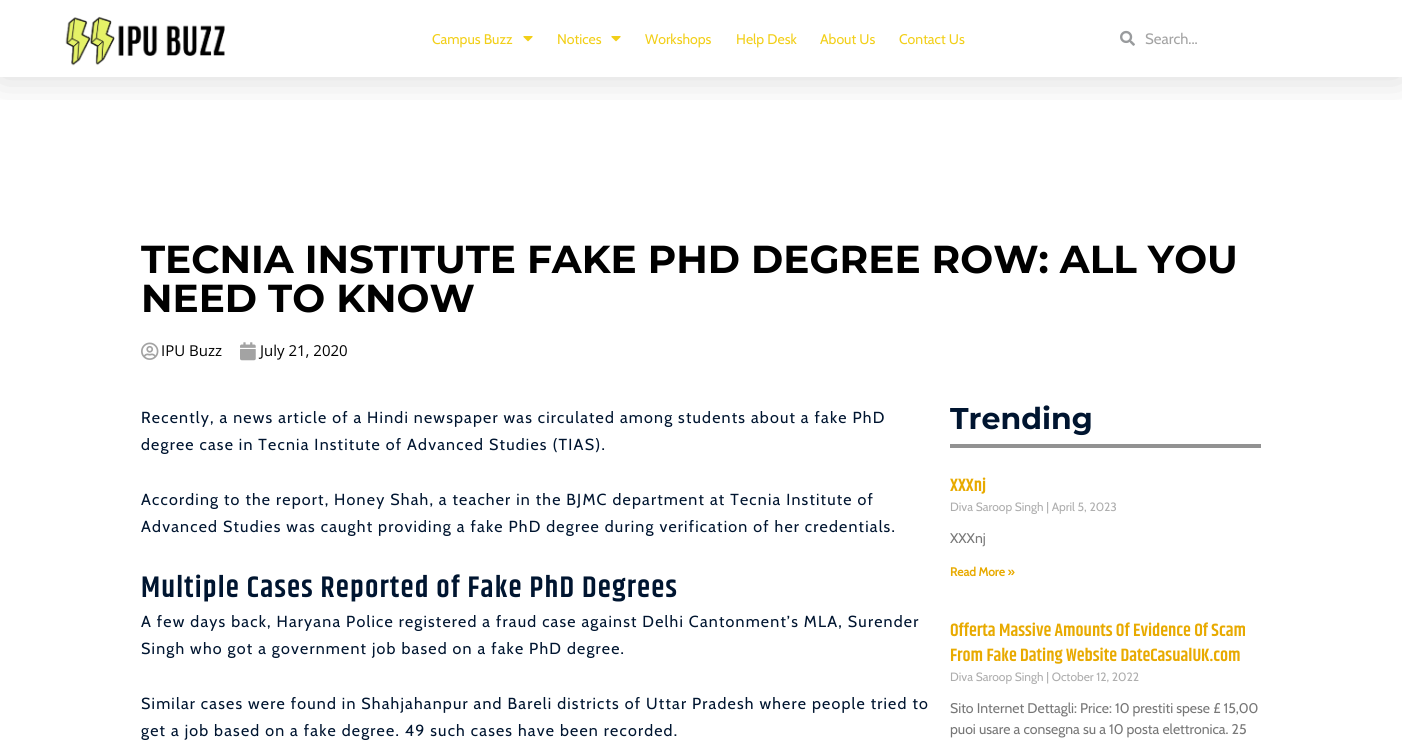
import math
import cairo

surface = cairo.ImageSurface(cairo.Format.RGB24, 1402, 752)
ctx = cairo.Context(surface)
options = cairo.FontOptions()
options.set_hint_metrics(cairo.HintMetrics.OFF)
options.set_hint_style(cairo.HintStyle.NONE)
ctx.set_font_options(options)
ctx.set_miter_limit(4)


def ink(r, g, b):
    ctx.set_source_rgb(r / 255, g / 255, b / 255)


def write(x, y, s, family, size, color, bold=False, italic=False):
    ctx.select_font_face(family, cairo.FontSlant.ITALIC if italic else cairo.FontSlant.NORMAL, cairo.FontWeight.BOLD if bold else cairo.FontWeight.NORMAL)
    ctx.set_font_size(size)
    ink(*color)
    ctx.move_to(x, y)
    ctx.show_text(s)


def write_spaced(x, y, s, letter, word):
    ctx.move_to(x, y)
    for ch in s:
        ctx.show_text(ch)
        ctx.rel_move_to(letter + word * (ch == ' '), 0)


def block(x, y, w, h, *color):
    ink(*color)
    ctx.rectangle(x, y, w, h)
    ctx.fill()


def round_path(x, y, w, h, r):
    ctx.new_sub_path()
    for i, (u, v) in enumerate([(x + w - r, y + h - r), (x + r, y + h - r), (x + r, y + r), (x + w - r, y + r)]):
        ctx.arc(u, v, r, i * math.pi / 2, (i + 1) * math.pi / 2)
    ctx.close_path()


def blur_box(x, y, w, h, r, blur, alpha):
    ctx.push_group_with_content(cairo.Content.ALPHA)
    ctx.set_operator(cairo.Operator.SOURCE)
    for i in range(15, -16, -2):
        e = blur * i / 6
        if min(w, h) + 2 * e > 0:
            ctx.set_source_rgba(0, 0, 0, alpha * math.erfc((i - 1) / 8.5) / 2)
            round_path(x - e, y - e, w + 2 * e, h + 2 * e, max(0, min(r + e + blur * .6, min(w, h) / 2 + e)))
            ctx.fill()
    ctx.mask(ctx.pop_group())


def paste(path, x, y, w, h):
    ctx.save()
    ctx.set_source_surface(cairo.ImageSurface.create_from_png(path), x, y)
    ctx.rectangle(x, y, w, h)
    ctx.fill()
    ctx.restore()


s1 = dict(family="Cabin", size=14, color=(242, 207, 25))
s2 = dict(family="Cabin", size=15, color=(163, 163, 163))
s3 = dict(family="Montserrat", size=39, color=(0, 0, 0), bold=True)
s4 = dict(family="Open Sans", size=15, color=(0, 0, 0))
s5 = dict(family="Montserrat", size=30, color=(0, 21, 48), bold=True)
s6 = dict(family="Khand SemiBold", size=18, color=(232, 170, 0))
s7 = dict(family="Cabin", size=12, color=(173, 173, 173))
s8 = dict(family="Cabin", size=14, color=(119, 119, 119))
s9 = dict(family="Cabin", size=12, color=(232, 170, 0), bold=True)

ink(255, 255, 255)
ctx.paint()
ctx.save()
ctx.rectangle(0, 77, 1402, 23)
ctx.clip()
ink(0, 0, 0)
blur_box(0, 0, 1402, 77, 0, 20, 0.16)
ctx.restore()
paste("pic1.png", 65, 16, 160, 50)
write(432, 44, "Campus Buzz", **s1)
paste("pic2.png", 523, 36, 10, 6)
write(557, 44, "Notices", **s1)
paste("pic2.png", 611, 36, 10, 6)
write(645, 44, "Workshops", **s1)
write(736, 44, "Help Desk", **s1)
write(820, 44, "About Us", **s1)
write(899, 44, "Contact Us", **s1)
paste("pic3.png", 1120, 30, 15, 16)
write(1145, 44, "Search...", **s2)
write(141, 273, "TECNIA INSTITUTE FAKE PHD DEGREE ROW: ALL YOU", **s3)
write(141, 312, "NEED TO KNOW", **s3)
paste("pic4.png", 141, 342, 18, 18)
write(161, 356, "IPU Buzz", **s4)
paste("pic5.png", 240, 342, 16, 19)
write(260, 356, "July 21, 2020", **s4)
ctx.select_font_face("Cabin")
ctx.set_font_size(16)
ink(0, 21, 48)
write_spaced(141, 423, "Recently, a news article of a Hindi newspaper was circulated among students about a fake PhD", 1.2, 0)
write_spaced(141, 450, "degree case in Tecnia Institute of Advanced Studies (TIAS).", 1.2, 0)
write_spaced(141, 505, "According to the report, Honey Shah, a teacher in the BJMC department at Tecnia Institute of", 1.2, 0)
write_spaced(141, 532, "Advanced Studies was caught providing a fake PhD degree during verification of her credentials.", 1.2, 0)
ctx.select_font_face("Khand SemiBold")
ctx.set_font_size(30)
write_spaced(141, 597, "Multiple Cases Reported of Fake PhD Degrees", 1.2, 0)
ctx.select_font_face("Cabin")
ctx.set_font_size(16)
write_spaced(141, 627, "A few days back, Haryana Police registered a fraud case against Delhi Cantonment’s MLA, Surender", 1.2, 0)
write_spaced(141, 654, "Singh who got a government job based on a fake PhD degree.", 1.2, 0)
write_spaced(141, 709, "Similar cases were found in Shahjahanpur and Bareli districts of Uttar Pradesh where people tried to", 1.2, 0)
write_spaced(141, 736, "get a job based on a fake degree. 49 such cases have been recorded.", 1.2, 0)
write(950, 429, "Trending", **s5)
block(950, 444, 311, 4, 146, 146, 146)
write(950, 491, "XXXnj", **s6)
write(950, 511, "Diva Saroop Singh | April 5, 2023", **s7)
write(950, 543, "XXXnj", **s8)
write(950, 576, "Read More »", **s9)
write(950, 636, "Offerta Massive Amounts Of Evidence Of Scam", **s6)
write(950, 661, "From Fake Dating Website DateCasualUK.com", **s6)
write(950, 681, "Diva Saroop Singh | October 12, 2022", **s7)
write(950, 713, "Sito Internet Dettagli: Price: 10 prestiti spese £ 15,00", **s8)
write(950, 734, "puoi usare a consegna su a 10 posta elettronica. 25", **s8)
surface.write_to_png("screenshot.png")
